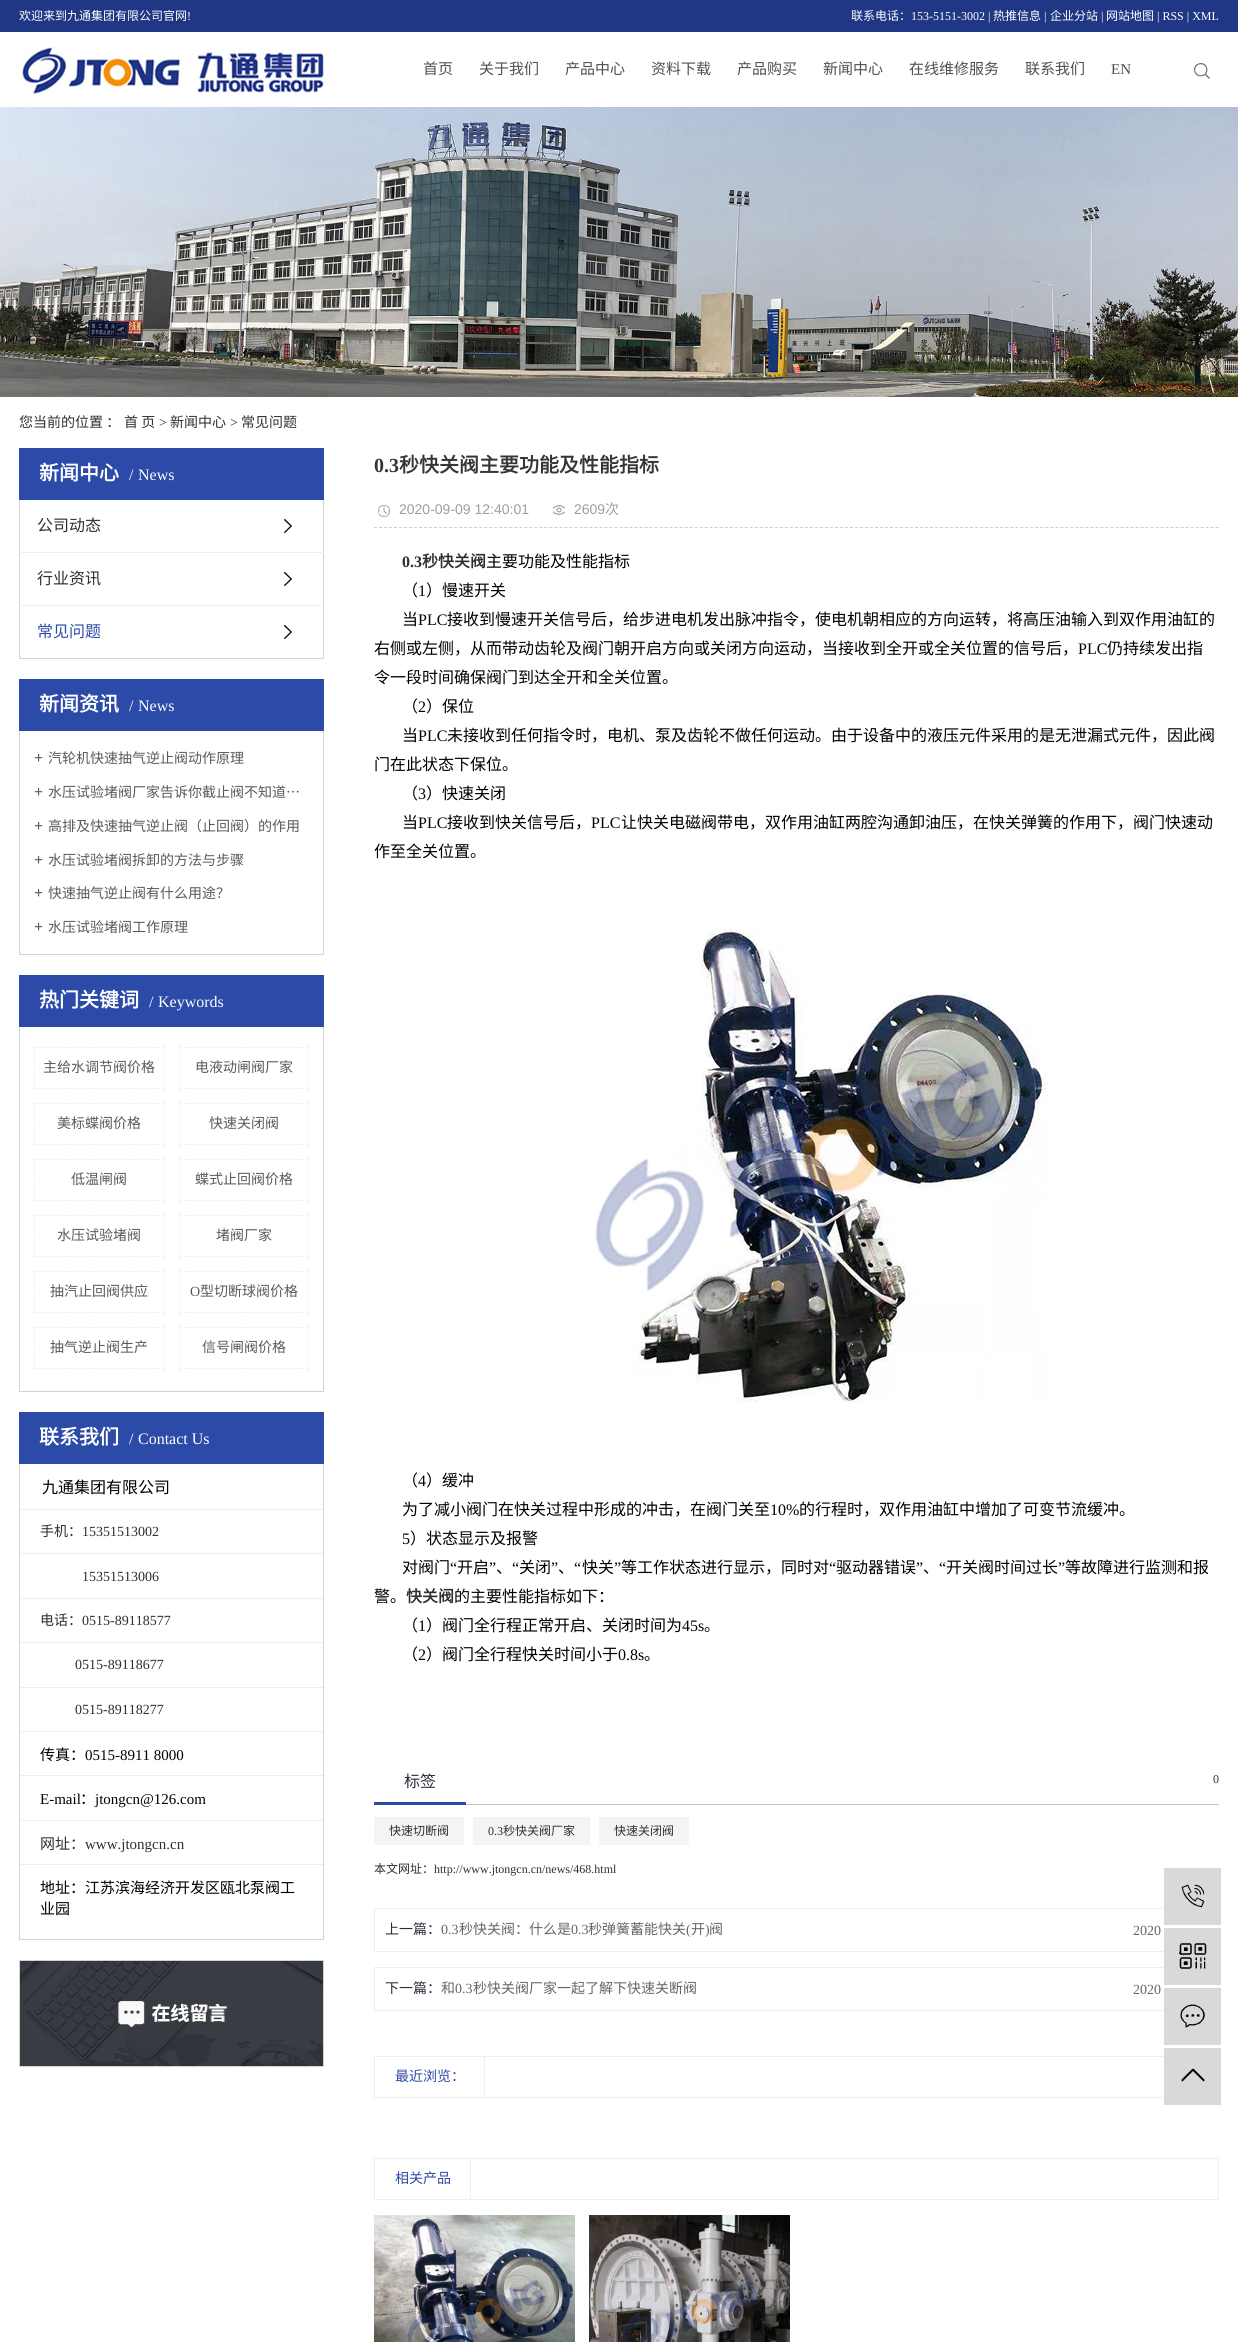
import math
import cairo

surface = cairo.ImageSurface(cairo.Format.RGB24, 1238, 2342)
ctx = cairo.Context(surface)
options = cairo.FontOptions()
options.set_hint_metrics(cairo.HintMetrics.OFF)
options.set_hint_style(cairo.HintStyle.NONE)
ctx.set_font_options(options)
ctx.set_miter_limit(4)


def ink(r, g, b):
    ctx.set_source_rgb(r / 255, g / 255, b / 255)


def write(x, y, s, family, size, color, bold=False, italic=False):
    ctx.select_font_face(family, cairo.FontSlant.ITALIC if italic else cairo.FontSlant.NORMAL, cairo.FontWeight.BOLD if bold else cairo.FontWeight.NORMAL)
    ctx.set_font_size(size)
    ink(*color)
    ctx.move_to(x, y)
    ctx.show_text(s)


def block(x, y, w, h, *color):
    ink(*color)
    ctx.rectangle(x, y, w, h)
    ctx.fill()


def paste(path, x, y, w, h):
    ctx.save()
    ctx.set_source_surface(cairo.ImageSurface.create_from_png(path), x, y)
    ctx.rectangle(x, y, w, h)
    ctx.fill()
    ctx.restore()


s1 = dict(family="Noto Sans CJK SC", size=12, color=(255, 255, 255))
s2 = dict(family="Liberation Serif", size=12, color=(255, 255, 255))
s3 = dict(family="Noto Sans CJK SC", size=15, color=(79, 79, 79))
s4 = dict(family="Liberation Serif", size=15, color=(79, 79, 79))
s5 = dict(family="Noto Sans CJK SC", size=14, color=(47, 47, 47))
s6 = dict(family="Liberation Serif", size=14, color=(47, 47, 47))
s7 = dict(family="Noto Sans CJK SC", size=20, color=(255, 255, 255), bold=True)
s8 = dict(family="Liberation Serif", size=16, color=(255, 255, 255))
s9 = dict(family="Noto Sans CJK SC", size=16, color=(47, 47, 47))
s10 = dict(family="Noto Sans CJK SC", size=16, color=(44, 74, 168))
s11 = dict(family="Liberation Serif", size=16, color=(90, 90, 90), bold=True)
s12 = dict(family="Noto Sans CJK SC", size=14, color=(90, 90, 90))
s13 = dict(family="Liberation Serif", size=14, color=(90, 90, 90))
s14 = dict(family="Noto Sans CJK SC", size=16, color=(0, 0, 0))
s15 = dict(family="Noto Sans CJK SC", size=15, color=(0, 0, 0))
s16 = dict(family="Liberation Serif", size=15, color=(0, 0, 0))
s17 = dict(family="Noto Sans CJK SC", size=15, color=(47, 47, 47))
s18 = dict(family="Liberation Serif", size=15, color=(47, 47, 47))
s19 = dict(family="Liberation Serif", size=20, color=(54, 54, 54), bold=True)
s20 = dict(family="Noto Sans CJK SC", size=20, color=(54, 54, 54), bold=True)
s21 = dict(family="Liberation Sans", size=14, color=(158, 158, 158))
s22 = dict(family="Noto Sans CJK SC", size=14, color=(158, 158, 158))
s23 = dict(family="Liberation Serif", size=16, color=(47, 47, 47), bold=True)
s24 = dict(family="Noto Sans CJK SC", size=16, color=(47, 47, 47), bold=True)
s25 = dict(family="Liberation Serif", size=16, color=(0, 0, 0))
s26 = dict(family="Noto Sans CJK SC", size=16, color=(41, 46, 57))
s27 = dict(family="Liberation Serif", size=12, color=(47, 47, 47))
s28 = dict(family="Noto Sans CJK SC", size=12, color=(47, 47, 47))
s29 = dict(family="Noto Sans CJK SC", size=14, color=(41, 46, 57))
s30 = dict(family="Liberation Serif", size=14, color=(102, 102, 102))
s31 = dict(family="Noto Sans CJK SC", size=14, color=(102, 102, 102))
s32 = dict(family="Noto Sans CJK SC", size=14, color=(44, 74, 168))

ink(255, 255, 255)
ctx.paint()
block(0, 0, 1238, 32, 31, 55, 132)
write(19, 20, "欢迎来到九通集团有限公司官网", **s1)
write(187, 20, "!", **s2)
write(851, 20, "联系电话：", **s1)
write(911, 20, "153-5151-3002 |", **s2)
write(993, 20, "热推信息", **s1)
write(1044, 20, "|", **s2)
write(1050, 20, "企业分站", **s1)
write(1101, 20, "|", **s2)
write(1106, 20, "网站地图", **s1)
write(1157, 20, "| RSS | XML", **s2)
paste("pic1.png", 19, 44, 308, 54)
write(423, 74, "首页", **s3)
write(479, 74, "关于我们", **s3)
write(565, 74, "产品中心", **s3)
write(651, 74, "资料下载", **s3)
write(737, 74, "产品购买", **s3)
write(823, 74, "新闻中心", **s3)
write(909, 74, "在线维修服务", **s3)
write(1025, 74, "联系我们", **s3)
write(1111, 74, "EN", **s4)
paste("pic2.png", 1194, 63, 16, 16)
paste("pic3.png", 0, 107, 1238, 290)
write(19, 427, "您当前的位置 ：", **s5)
write(124, 427, "首 页", **s5)
write(159, 427, ">", **s6)
write(170, 427, "新闻中心", **s5)
write(230, 427, ">", **s6)
write(241, 427, "常见问题", **s5)
block(19, 448, 305, 52, 44, 74, 168)
write(39, 480, "新闻中心", **s7)
write(129, 480, "/", **s8)
write(138, 480, "News", **s8)
block(323, 500, 1, 159, 210, 210, 210)
block(19, 658, 305, 1, 210, 210, 210)
block(19, 500, 1, 159, 210, 210, 210)
block(19, 552, 305, 1, 238, 238, 238)
write(37, 531, "公司动态", **s9)
paste("pic4.png", 284, 519, 8, 14)
block(19, 605, 305, 1, 238, 238, 238)
write(37, 584, "行业资讯", **s9)
paste("pic4.png", 284, 572, 8, 14)
write(37, 637, "常见问题", **s10)
paste("pic4.png", 284, 625, 8, 14)
block(19, 679, 305, 52, 44, 74, 168)
write(39, 711, "新闻资讯", **s7)
write(129, 711, "/", **s8)
write(138, 711, "News", **s8)
block(323, 731, 1, 224, 210, 210, 210)
block(19, 954, 305, 1, 210, 210, 210)
block(19, 731, 1, 224, 210, 210, 210)
write(34, 763, "+", **s11)
write(48, 763, "汽轮机快速抽气逆止阀动作原理", **s12)
write(34, 797, "+", **s11)
write(48, 797, "水压试验堵阀厂家告诉你截止阀不知道…", **s12)
write(34, 831, "+", **s11)
write(48, 831, "高排及快速抽气逆止阀（止回阀）的作用", **s12)
write(34, 865, "+", **s11)
write(48, 865, "水压试验堵阀拆卸的方法与步骤", **s12)
write(34, 898, "+", **s11)
write(48, 898, "快速抽气逆止阀有什么用途？", **s12)
write(34, 932, "+", **s11)
write(48, 932, "水压试验堵阀工作原理", **s12)
block(19, 975, 305, 52, 44, 74, 168)
write(39, 1007, "热门关键词", **s7)
write(149, 1007, "/", **s8)
write(158, 1007, "Keywords", **s8)
block(323, 1027, 1, 365, 210, 210, 210)
block(19, 1391, 305, 1, 210, 210, 210)
block(19, 1027, 1, 365, 210, 210, 210)
ctx.new_path()
ctx.move_to(34, 1047.5)
ctx.line_to(165, 1047.5)
ink(241, 241, 241)
ctx.set_line_width(1)
ctx.set_dash([3, 1.92])
ctx.stroke()
ctx.new_path()
ctx.move_to(164.5, 1047)
ctx.line_to(164.5, 1089)
ctx.set_dash([3, 1.88])
ctx.stroke()
ctx.new_path()
ctx.move_to(34, 1088.5)
ctx.line_to(165, 1088.5)
ctx.set_dash([3, 1.92])
ctx.stroke()
ctx.new_path()
ctx.move_to(34.5, 1047)
ctx.line_to(34.5, 1089)
ctx.set_dash([3, 1.88])
ctx.stroke()
write(43, 1072, "主给水调节阀价格", **s12)
ctx.new_path()
ctx.move_to(179, 1047.5)
ctx.line_to(309, 1047.5)
ink(241, 241, 241)
ctx.set_dash([3, 2.08])
ctx.stroke()
ctx.new_path()
ctx.move_to(308.5, 1047)
ctx.line_to(308.5, 1089)
ctx.set_dash([3, 1.88])
ctx.stroke()
ctx.new_path()
ctx.move_to(179, 1088.5)
ctx.line_to(309, 1088.5)
ctx.set_dash([3, 2.08])
ctx.stroke()
ctx.new_path()
ctx.move_to(179.5, 1047)
ctx.line_to(179.5, 1089)
ctx.set_dash([3, 1.88])
ctx.stroke()
write(195, 1072, "电液动闸阀厂家", **s12)
ctx.new_path()
ctx.move_to(34, 1103.5)
ctx.line_to(165, 1103.5)
ink(241, 241, 241)
ctx.set_dash([3, 1.92])
ctx.stroke()
ctx.new_path()
ctx.move_to(164.5, 1103)
ctx.line_to(164.5, 1145)
ctx.set_dash([3, 1.88])
ctx.stroke()
ctx.new_path()
ctx.move_to(34, 1144.5)
ctx.line_to(165, 1144.5)
ctx.set_dash([3, 1.92])
ctx.stroke()
ctx.new_path()
ctx.move_to(34.5, 1103)
ctx.line_to(34.5, 1145)
ctx.set_dash([3, 1.88])
ctx.stroke()
write(57, 1128, "美标蝶阀价格", **s12)
ctx.new_path()
ctx.move_to(179, 1103.5)
ctx.line_to(309, 1103.5)
ink(241, 241, 241)
ctx.set_dash([3, 2.08])
ctx.stroke()
ctx.new_path()
ctx.move_to(308.5, 1103)
ctx.line_to(308.5, 1145)
ctx.set_dash([3, 1.88])
ctx.stroke()
ctx.new_path()
ctx.move_to(179, 1144.5)
ctx.line_to(309, 1144.5)
ctx.set_dash([3, 2.08])
ctx.stroke()
ctx.new_path()
ctx.move_to(179.5, 1103)
ctx.line_to(179.5, 1145)
ctx.set_dash([3, 1.88])
ctx.stroke()
write(209, 1128, "快速关闭阀", **s12)
ctx.new_path()
ctx.move_to(34, 1159.5)
ctx.line_to(165, 1159.5)
ink(241, 241, 241)
ctx.set_dash([3, 1.92])
ctx.stroke()
ctx.new_path()
ctx.move_to(164.5, 1159)
ctx.line_to(164.5, 1201)
ctx.set_dash([3, 1.88])
ctx.stroke()
ctx.new_path()
ctx.move_to(34, 1200.5)
ctx.line_to(165, 1200.5)
ctx.set_dash([3, 1.92])
ctx.stroke()
ctx.new_path()
ctx.move_to(34.5, 1159)
ctx.line_to(34.5, 1201)
ctx.set_dash([3, 1.88])
ctx.stroke()
write(71, 1184, "低温闸阀", **s12)
ctx.new_path()
ctx.move_to(179, 1159.5)
ctx.line_to(309, 1159.5)
ink(241, 241, 241)
ctx.set_dash([3, 2.08])
ctx.stroke()
ctx.new_path()
ctx.move_to(308.5, 1159)
ctx.line_to(308.5, 1201)
ctx.set_dash([3, 1.88])
ctx.stroke()
ctx.new_path()
ctx.move_to(179, 1200.5)
ctx.line_to(309, 1200.5)
ctx.set_dash([3, 2.08])
ctx.stroke()
ctx.new_path()
ctx.move_to(179.5, 1159)
ctx.line_to(179.5, 1201)
ctx.set_dash([3, 1.88])
ctx.stroke()
write(195, 1184, "蝶式止回阀价格", **s12)
ctx.new_path()
ctx.move_to(34, 1215.5)
ctx.line_to(165, 1215.5)
ink(241, 241, 241)
ctx.set_dash([3, 1.92])
ctx.stroke()
ctx.new_path()
ctx.move_to(164.5, 1215)
ctx.line_to(164.5, 1257)
ctx.set_dash([3, 1.88])
ctx.stroke()
ctx.new_path()
ctx.move_to(34, 1256.5)
ctx.line_to(165, 1256.5)
ctx.set_dash([3, 1.92])
ctx.stroke()
ctx.new_path()
ctx.move_to(34.5, 1215)
ctx.line_to(34.5, 1257)
ctx.set_dash([3, 1.88])
ctx.stroke()
write(57, 1240, "水压试验堵阀", **s12)
ctx.new_path()
ctx.move_to(179, 1215.5)
ctx.line_to(309, 1215.5)
ink(241, 241, 241)
ctx.set_dash([3, 2.08])
ctx.stroke()
ctx.new_path()
ctx.move_to(308.5, 1215)
ctx.line_to(308.5, 1257)
ctx.set_dash([3, 1.88])
ctx.stroke()
ctx.new_path()
ctx.move_to(179, 1256.5)
ctx.line_to(309, 1256.5)
ctx.set_dash([3, 2.08])
ctx.stroke()
ctx.new_path()
ctx.move_to(179.5, 1215)
ctx.line_to(179.5, 1257)
ctx.set_dash([3, 1.88])
ctx.stroke()
write(216, 1240, "堵阀厂家", **s12)
ctx.new_path()
ctx.move_to(34, 1271.5)
ctx.line_to(165, 1271.5)
ink(241, 241, 241)
ctx.set_dash([3, 1.92])
ctx.stroke()
ctx.new_path()
ctx.move_to(164.5, 1271)
ctx.line_to(164.5, 1313)
ctx.set_dash([3, 1.88])
ctx.stroke()
ctx.new_path()
ctx.move_to(34, 1312.5)
ctx.line_to(165, 1312.5)
ctx.set_dash([3, 1.92])
ctx.stroke()
ctx.new_path()
ctx.move_to(34.5, 1271)
ctx.line_to(34.5, 1313)
ctx.set_dash([3, 1.88])
ctx.stroke()
write(50, 1296, "抽汽止回阀供应", **s12)
ctx.new_path()
ctx.move_to(179, 1271.5)
ctx.line_to(309, 1271.5)
ink(241, 241, 241)
ctx.set_dash([3, 2.08])
ctx.stroke()
ctx.new_path()
ctx.move_to(308.5, 1271)
ctx.line_to(308.5, 1313)
ctx.set_dash([3, 1.88])
ctx.stroke()
ctx.new_path()
ctx.move_to(179, 1312.5)
ctx.line_to(309, 1312.5)
ctx.set_dash([3, 2.08])
ctx.stroke()
ctx.new_path()
ctx.move_to(179.5, 1271)
ctx.line_to(179.5, 1313)
ctx.set_dash([3, 1.88])
ctx.stroke()
write(190, 1296, "O", **s13)
write(200, 1296, "型切断球阀价格", **s12)
ctx.new_path()
ctx.move_to(34, 1327.5)
ctx.line_to(165, 1327.5)
ink(241, 241, 241)
ctx.set_dash([3, 1.92])
ctx.stroke()
ctx.new_path()
ctx.move_to(164.5, 1327)
ctx.line_to(164.5, 1369)
ctx.set_dash([3, 1.88])
ctx.stroke()
ctx.new_path()
ctx.move_to(34, 1368.5)
ctx.line_to(165, 1368.5)
ctx.set_dash([3, 1.92])
ctx.stroke()
ctx.new_path()
ctx.move_to(34.5, 1327)
ctx.line_to(34.5, 1369)
ctx.set_dash([3, 1.88])
ctx.stroke()
write(50, 1352, "抽气逆止阀生产", **s12)
ctx.new_path()
ctx.move_to(179, 1327.5)
ctx.line_to(309, 1327.5)
ink(241, 241, 241)
ctx.set_dash([3, 2.08])
ctx.stroke()
ctx.new_path()
ctx.move_to(308.5, 1327)
ctx.line_to(308.5, 1369)
ctx.set_dash([3, 1.88])
ctx.stroke()
ctx.new_path()
ctx.move_to(179, 1368.5)
ctx.line_to(309, 1368.5)
ctx.set_dash([3, 2.08])
ctx.stroke()
ctx.new_path()
ctx.move_to(179.5, 1327)
ctx.line_to(179.5, 1369)
ctx.set_dash([3, 1.88])
ctx.stroke()
write(202, 1352, "信号闸阀价格", **s12)
block(19, 1412, 305, 52, 44, 74, 168)
write(39, 1444, "联系我们", **s7)
write(129, 1444, "/", **s8)
write(138, 1444, "Contact Us", **s8)
block(323, 1464, 1, 476, 210, 210, 210)
block(19, 1939, 305, 1, 210, 210, 210)
block(19, 1464, 1, 476, 210, 210, 210)
write(42, 1493, "九通集团有限公司", **s14)
block(20, 1509, 303, 1, 238, 238, 238)
write(40, 1536, "手机：", **s5)
write(82, 1536, "15351513002", **s6)
block(20, 1553, 303, 1, 238, 238, 238)
write(82, 1581, "15351513006", **s6)
block(20, 1598, 303, 1, 238, 238, 238)
write(40, 1625, "电话：", **s5)
write(82, 1625, "0515-89118577", **s6)
block(20, 1642, 303, 1, 238, 238, 238)
write(75, 1669, "0515-89118677", **s6)
block(20, 1687, 303, 1, 238, 238, 238)
write(75, 1714, "0515-89118277", **s6)
block(20, 1731, 303, 1, 238, 238, 238)
write(40, 1760, "传真：", **s15)
write(85, 1760, "0515-8911 8000", **s16)
block(20, 1775, 303, 1, 238, 238, 238)
write(40, 1804, "E-mail", **s16)
write(80, 1804, "：", **s15)
write(95, 1804, "jtongcn@126.com", **s16)
block(20, 1820, 303, 1, 238, 238, 238)
write(40, 1849, "网址：", **s17)
write(85, 1849, "www.jtongcn.cn", **s18)
block(20, 1864, 303, 1, 238, 238, 238)
write(40, 1893, "地址：江苏滨海经济开发区瓯北泵阀工", **s15)
write(40, 1914, "业园", **s15)
ctx.rectangle(19.5, 1960.5, 304, 106)
ink(210, 210, 210)
ctx.set_dash([])
ctx.stroke()
paste("pic5.png", 20, 1961, 303, 105)
write(374, 472, "0.3", **s19)
write(399, 472, "秒快关阀主要功能及性能指标", **s20)
ctx.new_path()
ctx.move_to(374, 527.5)
ctx.line_to(1219, 527.5)
ink(207, 207, 207)
ctx.set_dash([3, 2.01])
ctx.stroke()
paste("pic6.png", 378, 505, 12, 12)
write(399, 514, "2020-09-09 12:40:01", **s21)
paste("pic7.png", 553, 505, 12, 10)
write(574, 514, "2609", **s21)
write(605, 514, "次", **s22)
write(402, 567, "0.3", **s23)
write(422, 567, "秒快关阀", **s24)
write(486, 567, "主要功能及性能指标", **s14)
write(402, 596, "（", **s14)
write(418, 596, "1", **s25)
write(426, 596, "）慢速开关", **s14)
write(402, 625, "当", **s14)
write(418, 625, "PLC", **s25)
write(447, 625, "接收到慢速开关信号后，给步进电机发出脉冲指令，使电机朝相应的方向运转，将高压油输入到双作用油缸的", **s14)
write(374, 654, "右侧或左侧，从而带动齿轮及阀门朝开启方向或关闭方向运动，当接收到全开或全关位置的信号后，", **s14)
write(1078, 654, "PLC", **s25)
write(1107, 654, "仍持续发出指", **s14)
write(374, 683, "令一段时间确保阀门到达全开和全关位置。", **s14)
write(402, 712, "（", **s14)
write(418, 712, "2", **s25)
write(426, 712, "）保位", **s14)
write(402, 741, "当", **s14)
write(418, 741, "PLC", **s25)
write(447, 741, "未接收到任何指令时，电机、泵及齿轮不做任何运动。由于设备中的液压元件采用的是无泄漏式元件，因此阀", **s14)
write(374, 770, "门在此状态下保位。", **s14)
write(402, 799, "（", **s14)
write(418, 799, "3", **s25)
write(426, 799, "）快速关闭", **s14)
write(402, 828, "当", **s14)
write(418, 828, "PLC", **s25)
write(447, 828, "接收到快关信号后，", **s14)
write(591, 828, "PLC", **s25)
write(621, 828, "让快关电磁阀带电，双作用油缸两腔沟通卸油压，在快关弹簧的作用下，阀门快速动", **s14)
write(374, 857, "作至全关位置。", **s14)
paste("pic8.png", 595, 928, 454, 475)
write(402, 1486, "（", **s14)
write(418, 1486, "4", **s25)
write(426, 1486, "）缓冲", **s14)
write(402, 1515, "为了减小阀门在快关过程中形成的冲击，在阀门关至", **s14)
write(770, 1515, "10%", **s25)
write(799, 1515, "的行程时，双作用油缸中增加了可变节流缓冲。", **s14)
write(402, 1544, "5", **s25)
write(410, 1544, "）状态显示及报警", **s14)
write(402, 1573, "对阀门", **s14)
write(450, 1573, "“", **s25)
write(457, 1573, "开启", **s14)
write(489, 1573, "”", **s25)
write(512, 1573, "“", **s25)
write(519, 1573, "关闭", **s14)
write(551, 1573, "”", **s25)
write(574, 1573, "“", **s25)
write(582, 1573, "快关", **s14)
write(614, 1573, "”", **s25)
write(621, 1573, "等工作状态进行显示，同时对", **s14)
write(829, 1573, "“", **s25)
write(836, 1573, "驱动器错误", **s14)
write(916, 1573, "”", **s25)
write(939, 1573, "“", **s25)
write(946, 1573, "开关阀时间过长", **s14)
write(1058, 1573, "”", **s25)
write(1065, 1573, "等故障进行监测和报", **s14)
write(496, 1573, "、", **s14)
write(558, 1573, "、", **s14)
write(923, 1573, "、", **s14)
write(374, 1602, "警。", **s14)
write(406, 1602, "快关阀", **s24)
write(454, 1602, "的主要性能指标如下：", **s14)
write(402, 1631, "（", **s14)
write(418, 1631, "1", **s25)
write(426, 1631, "）阀门全行程正常开启、关闭时间为", **s14)
write(682, 1631, "45s", **s25)
write(704, 1631, "。", **s14)
write(402, 1660, "（", **s14)
write(418, 1660, "2", **s25)
write(426, 1660, "）阀门全行程快关时间小于", **s14)
write(618, 1660, "0.8s", **s25)
write(644, 1660, "。", **s14)
block(466, 1804, 753, 1, 195, 195, 195)
block(374, 1802, 92, 3, 44, 74, 168)
write(404, 1787, "标签", **s26)
write(1213, 1783, "0", **s27)
block(374, 1817, 90, 28, 244, 244, 244)
write(389, 1835, "快速切断阀", **s28)
block(473, 1817, 117, 28, 244, 244, 244)
write(488, 1835, "0.3", **s27)
write(503, 1835, "秒快关阀厂家", **s28)
block(599, 1817, 90, 28, 244, 244, 244)
write(614, 1835, "快速关闭阀", **s28)
write(374, 1873, "本文网址：", **s28)
write(434, 1873, "http://www.jtongcn.cn/news/468.html", **s27)
ctx.rectangle(374.5, 1908.5, 844, 43)
ink(238, 238, 238)
ctx.set_dash([])
ctx.stroke()
write(385, 1934, "上一篇：", **s29)
write(441, 1934, "0.3", **s30)
write(459, 1934, "秒快关阀：什么是", **s31)
write(571, 1934, "0.3", **s30)
write(588, 1934, "秒弹簧蓄能快关", **s31)
write(686, 1934, "(", **s30)
write(691, 1934, "开", **s31)
write(705, 1934, ")", **s30)
write(709, 1934, "阀", **s31)
write(1133, 1935, "2020", **s30)
ctx.rectangle(374.5, 1967.5, 844, 43)
ink(238, 238, 238)
ctx.stroke()
write(385, 1993, "下一篇：", **s29)
write(441, 1993, "和", **s31)
write(455, 1993, "0.3", **s30)
write(473, 1993, "秒快关阀厂家一起了解下快速关断阀", **s31)
write(1133, 1994, "2020", **s30)
ctx.rectangle(374.5, 2056.5, 844, 41)
ink(238, 238, 238)
ctx.stroke()
block(484, 2057, 1, 40, 238, 238, 238)
write(395, 2081, "最近浏览：", **s32)
ctx.rectangle(374.5, 2158.5, 844, 41)
ink(238, 238, 238)
ctx.stroke()
block(470, 2159, 1, 40, 238, 238, 238)
write(395, 2183, "相关产品", **s32)
paste("pic9.png", 374, 2215, 201, 127)
paste("pic10.png", 589, 2215, 201, 127)
block(1164, 1868, 57, 57, 217, 217, 217)
paste("pic11.png", 1181, 1884, 24, 24)
block(1164, 1928, 57, 57, 217, 217, 217)
paste("pic12.png", 1179, 1943, 28, 26)
block(1164, 1988, 57, 57, 217, 217, 217)
paste("pic13.png", 1180, 2004, 25, 24)
block(1164, 2048, 57, 57, 217, 217, 217)
paste("pic14.png", 1181, 2068, 24, 14)
surface.write_to_png("screenshot.png")
